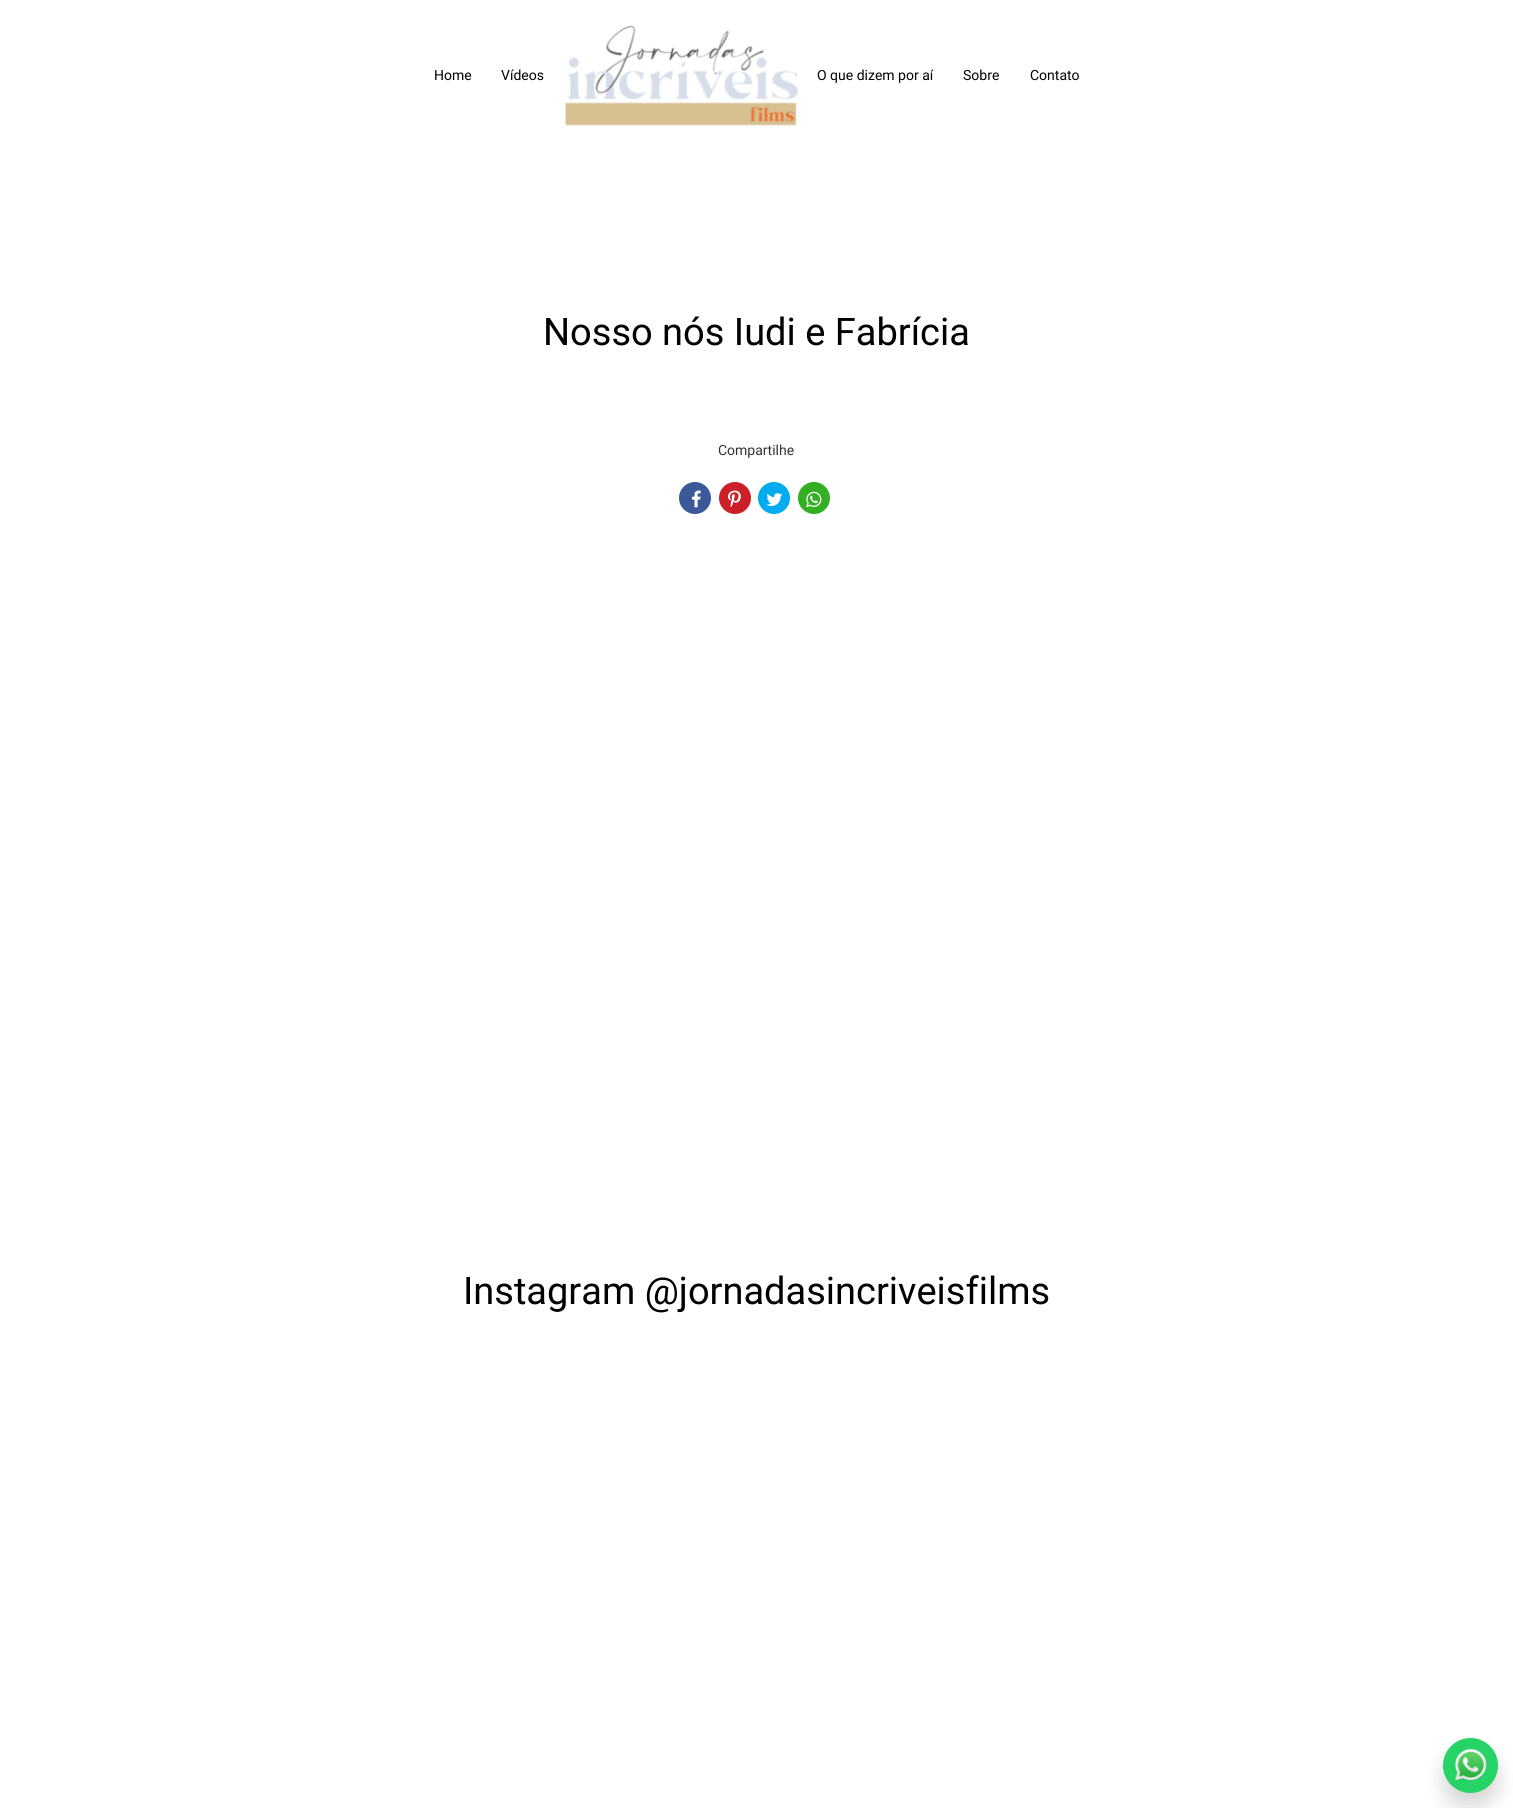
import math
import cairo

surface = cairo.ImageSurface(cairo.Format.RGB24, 1513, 1808)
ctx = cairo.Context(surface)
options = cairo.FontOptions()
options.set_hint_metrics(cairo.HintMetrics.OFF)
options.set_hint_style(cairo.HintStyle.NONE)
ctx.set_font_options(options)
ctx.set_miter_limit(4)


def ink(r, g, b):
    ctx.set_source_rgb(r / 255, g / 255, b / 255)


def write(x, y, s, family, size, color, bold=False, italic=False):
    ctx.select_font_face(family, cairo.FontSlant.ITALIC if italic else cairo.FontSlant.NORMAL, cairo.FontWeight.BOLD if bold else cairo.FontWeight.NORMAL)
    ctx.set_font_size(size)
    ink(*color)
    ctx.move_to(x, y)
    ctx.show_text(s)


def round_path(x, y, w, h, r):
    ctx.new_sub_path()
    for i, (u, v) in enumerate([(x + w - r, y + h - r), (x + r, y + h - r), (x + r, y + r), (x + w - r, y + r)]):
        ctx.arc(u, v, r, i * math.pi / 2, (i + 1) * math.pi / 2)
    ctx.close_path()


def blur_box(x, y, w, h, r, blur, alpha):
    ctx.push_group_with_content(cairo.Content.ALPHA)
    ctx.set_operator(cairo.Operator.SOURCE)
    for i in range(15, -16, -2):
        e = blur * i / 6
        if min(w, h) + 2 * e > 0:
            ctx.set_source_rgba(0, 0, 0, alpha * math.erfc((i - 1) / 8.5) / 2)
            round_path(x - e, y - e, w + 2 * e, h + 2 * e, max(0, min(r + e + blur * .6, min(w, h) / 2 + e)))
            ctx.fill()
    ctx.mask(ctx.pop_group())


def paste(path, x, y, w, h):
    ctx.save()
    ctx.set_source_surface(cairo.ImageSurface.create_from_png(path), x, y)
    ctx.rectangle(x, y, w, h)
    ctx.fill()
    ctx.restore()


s1 = dict(family="Roboto", size=14, color=(0, 0, 0))
s2 = dict(family="Roboto", size=38, color=(0, 0, 0))
s3 = dict(family="Roboto", size=14, color=(51, 51, 51))

ink(255, 255, 255)
ctx.paint()
write(434, 80, "Home", **s1)
write(501, 80, "Vídeos", **s1)
paste("pic1.png", 565, 25, 233, 101)
write(817, 80, "O que dizem por aí", **s1)
write(963, 80, "Sobre", **s1)
write(1030, 80, "Contato", **s1)
write(543, 345, "Nosso nós Iudi e Fabrícia", **s2)
write(718, 455, "Compartilhe", **s3)
ink(59, 89, 152)
ctx.new_path()
ctx.arc(695, 498, 16, 0, 2 * math.pi)
ctx.fill()
paste("pic2.png", 691, 490, 10, 18)
ink(203, 32, 39)
ctx.arc(735, 498, 16, 0, 2 * math.pi)
ctx.fill()
paste("pic3.png", 728, 490, 13, 18)
ink(0, 172, 237)
ctx.arc(774, 498, 16, 0, 2 * math.pi)
ctx.fill()
paste("pic4.png", 766, 493, 17, 13)
ink(52, 175, 35)
ctx.arc(814, 498, 16, 0, 2 * math.pi)
ctx.fill()
paste("pic5.png", 806, 491, 16, 17)
write(463, 1304, "Instagram @jornadasincriveisfilms", **s2)
ink(0, 0, 0)
blur_box(1443, 1752, 55, 55, 27.5, 10, 0.16)
ink(37, 211, 102)
ctx.arc(1470.5, 1765.5, 27.5, 0, 2 * math.pi)
ctx.fill()
paste("pic6.png", 1454, 1748, 33, 33)
surface.write_to_png("screenshot.png")
